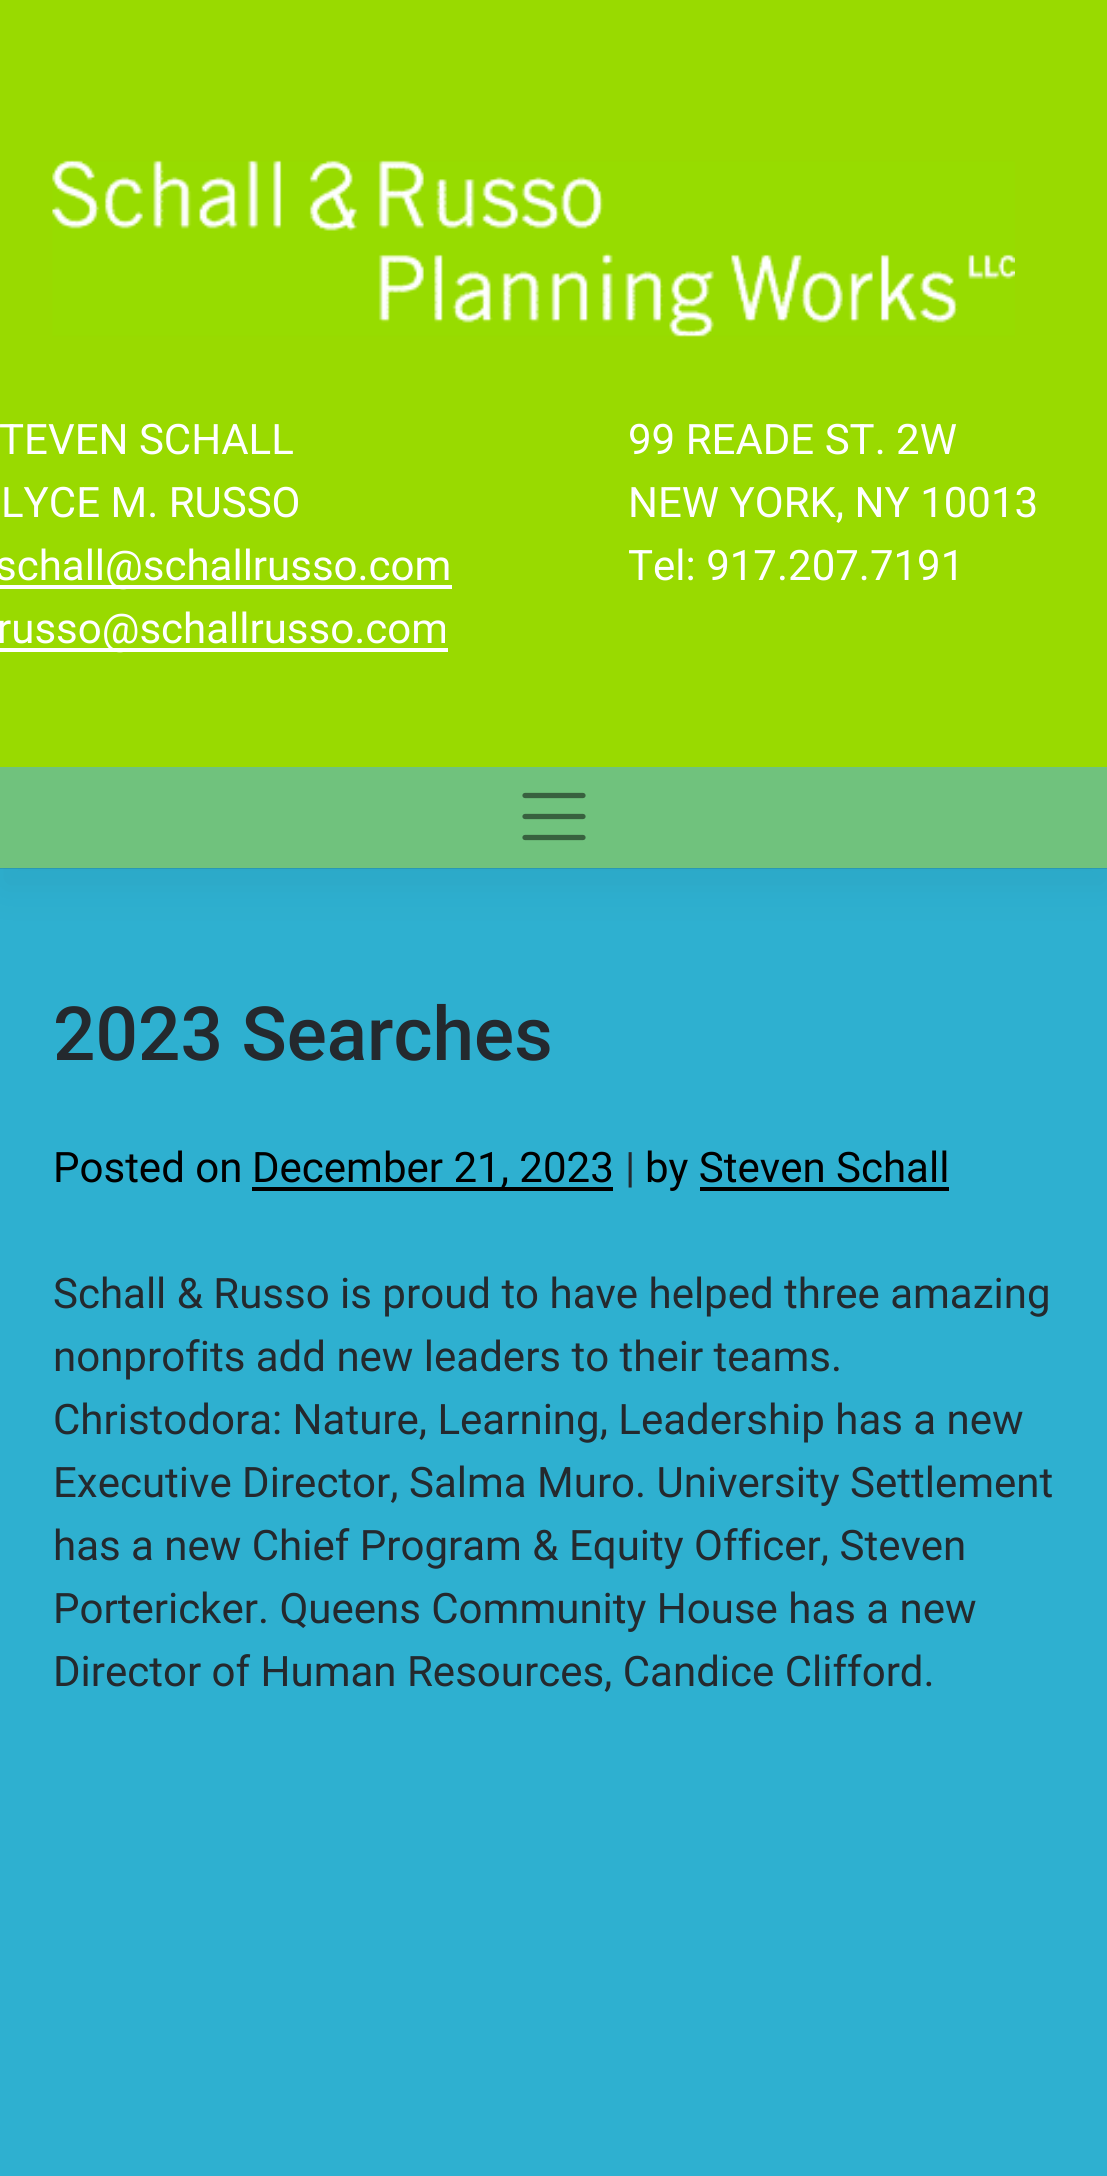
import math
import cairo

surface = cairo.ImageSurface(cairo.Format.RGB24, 1107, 2176)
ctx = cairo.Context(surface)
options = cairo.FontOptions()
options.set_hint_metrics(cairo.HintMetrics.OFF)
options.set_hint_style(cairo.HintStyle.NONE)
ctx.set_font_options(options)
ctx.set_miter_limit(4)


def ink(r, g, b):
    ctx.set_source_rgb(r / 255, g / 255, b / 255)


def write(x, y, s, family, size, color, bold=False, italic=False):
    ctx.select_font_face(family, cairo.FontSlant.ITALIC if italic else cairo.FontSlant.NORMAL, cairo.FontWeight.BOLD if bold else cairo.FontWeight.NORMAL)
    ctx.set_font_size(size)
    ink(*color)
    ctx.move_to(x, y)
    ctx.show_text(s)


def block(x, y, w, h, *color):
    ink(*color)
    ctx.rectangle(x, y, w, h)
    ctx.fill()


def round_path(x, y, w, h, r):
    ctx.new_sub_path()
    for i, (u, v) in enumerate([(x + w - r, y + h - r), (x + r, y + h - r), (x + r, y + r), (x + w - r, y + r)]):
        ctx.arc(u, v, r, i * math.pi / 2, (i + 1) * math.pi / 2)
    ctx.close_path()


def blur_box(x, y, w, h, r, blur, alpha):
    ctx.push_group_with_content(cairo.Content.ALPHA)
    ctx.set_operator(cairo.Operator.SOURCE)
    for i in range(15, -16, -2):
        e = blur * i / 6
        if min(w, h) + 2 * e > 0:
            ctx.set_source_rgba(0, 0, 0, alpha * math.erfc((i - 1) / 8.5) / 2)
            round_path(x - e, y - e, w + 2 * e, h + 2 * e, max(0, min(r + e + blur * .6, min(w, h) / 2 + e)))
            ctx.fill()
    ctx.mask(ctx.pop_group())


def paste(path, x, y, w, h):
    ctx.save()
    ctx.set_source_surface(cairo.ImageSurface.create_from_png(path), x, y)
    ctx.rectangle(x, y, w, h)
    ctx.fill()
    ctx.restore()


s1 = dict(family="Roboto", size=42, color=(255, 255, 255))
s2 = dict(family="Roboto Medium", size=74.75, color=(36, 41, 46))
s3 = dict(family="Roboto", size=42, color=(0, 0, 0))
s4 = dict(family="Roboto", size=42, color=(36, 41, 46))

ink(46, 176, 208)
ctx.paint()
ink(0, 0, 0)
blur_box(0, 21, 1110, 868, 0, 21, 0.05)
block(0, 0, 1107, 767, 153, 218, 0)
ctx.set_source_rgba(0, 0, 0, 0.1)
ctx.rectangle(0, 868, 1107, 1)
ctx.fill()
paste("pic1.png", 52, 160, 963, 177)
write(-1, 454, "TEVEN SCHALL", **s1)
write(1, 517, "LYCE M. RUSSO", **s1)
block(0, 585, 452, 4, 255, 255, 255)
write(-5, 580, "schall@schallrusso.com", **s1)
block(0, 648, 448, 4, 255, 255, 255)
write(-3, 643, "russo@schallrusso.com", **s1)
write(628, 454, "99 READE ST. 2W", **s1)
write(628, 517, "NEW YORK, NY 10013", **s1)
write(628, 580, "Tel: 917.207.7191", **s1)
block(0, 767, 1107, 101, 112, 194, 125)
ctx.new_path()
ctx.move_to(525, 795.5)
ctx.line_to(583, 795.5)
ctx.move_to(525, 816.5)
ctx.line_to(583, 816.5)
ctx.move_to(525, 837.5)
ctx.line_to(583, 837.5)
ink(56, 97, 63)
ctx.set_line_width(5.2)
ctx.set_line_cap(cairo.LineCap.ROUND)
ctx.stroke()
write(53, 1060, "2023 Searches", **s2)
write(53, 1182, "Posted on", **s3)
block(252, 1187, 361, 4, 0, 0, 0)
write(252, 1182, "December 21, 2023", **s3)
write(625, 1182, "|", **s4)
write(645, 1182, "by Steven Schall", **s3)
block(700, 1187, 249, 4, 0, 0, 0)
write(53, 1308, "Schall & Russo is proud to have helped three amazing", **s4)
write(53, 1371, "nonprofits add new leaders to their teams.", **s4)
write(53, 1434, "Christodora: Nature, Learning, Leadership has a new", **s4)
write(53, 1497, "Executive Director, Salma Muro. University Settlement", **s4)
write(53, 1560, "has a new Chief Program & Equity Officer, Steven", **s4)
write(53, 1623, "Portericker. Queens Community House has a new", **s4)
write(53, 1686, "Director of Human Resources, Candice Clifford.", **s4)
surface.write_to_png("screenshot.png")
